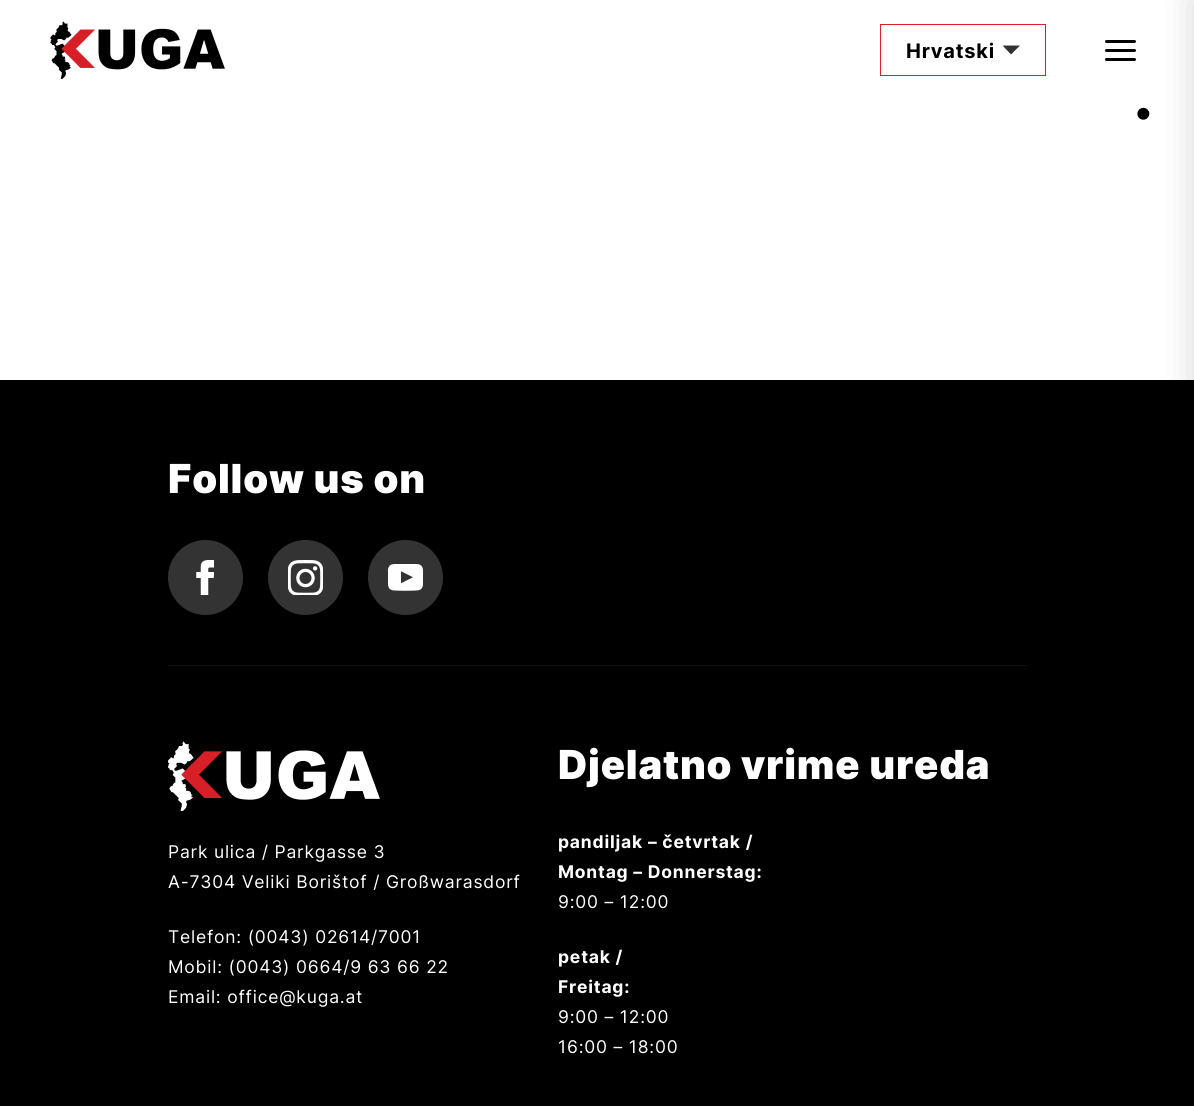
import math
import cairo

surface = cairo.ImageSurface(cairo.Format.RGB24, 1194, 1106)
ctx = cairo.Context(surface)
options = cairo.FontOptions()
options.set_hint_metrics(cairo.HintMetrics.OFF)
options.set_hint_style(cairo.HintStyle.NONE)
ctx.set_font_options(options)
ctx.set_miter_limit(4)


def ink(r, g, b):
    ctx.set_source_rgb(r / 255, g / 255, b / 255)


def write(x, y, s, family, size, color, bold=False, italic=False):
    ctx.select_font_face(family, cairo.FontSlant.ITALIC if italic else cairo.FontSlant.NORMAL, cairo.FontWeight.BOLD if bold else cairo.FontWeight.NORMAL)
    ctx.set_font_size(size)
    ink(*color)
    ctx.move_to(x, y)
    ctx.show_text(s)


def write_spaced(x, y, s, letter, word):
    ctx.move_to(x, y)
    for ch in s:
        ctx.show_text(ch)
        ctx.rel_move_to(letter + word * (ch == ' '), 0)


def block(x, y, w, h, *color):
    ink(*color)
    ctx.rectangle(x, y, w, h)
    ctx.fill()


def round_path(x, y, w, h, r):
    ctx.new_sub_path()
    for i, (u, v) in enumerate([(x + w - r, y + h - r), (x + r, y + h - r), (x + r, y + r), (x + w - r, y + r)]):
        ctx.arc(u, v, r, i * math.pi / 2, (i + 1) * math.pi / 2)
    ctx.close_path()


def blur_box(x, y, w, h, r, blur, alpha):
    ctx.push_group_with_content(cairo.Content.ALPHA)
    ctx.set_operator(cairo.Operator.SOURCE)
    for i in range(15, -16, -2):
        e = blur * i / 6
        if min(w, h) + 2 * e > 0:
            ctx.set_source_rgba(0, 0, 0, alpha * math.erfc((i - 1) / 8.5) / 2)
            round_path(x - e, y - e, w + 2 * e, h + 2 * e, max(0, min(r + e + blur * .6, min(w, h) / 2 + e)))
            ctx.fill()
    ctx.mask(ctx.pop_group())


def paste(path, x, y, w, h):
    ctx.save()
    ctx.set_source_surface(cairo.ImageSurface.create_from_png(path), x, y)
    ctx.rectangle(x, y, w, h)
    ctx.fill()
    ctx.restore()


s1 = dict(family="Inter Black", size=60, color=(0, 0, 0))

ink(255, 255, 255)
ctx.paint()
paste("pic1.png", 50, 21, 175, 58)
ctx.rectangle(880.5, 24.5, 165, 51)
ink(215, 31, 39)
ctx.set_line_width(1)
ctx.stroke()
ctx.select_font_face("Inter", cairo.FontSlant.NORMAL, cairo.FontWeight.BOLD)
ctx.set_font_size(20)
ink(0, 0, 0)
write_spaced(906, 58, "Hrvatski", 0.8, 0)
ink(50, 50, 50)
ctx.new_path()
ctx.move_to(1002.5, 45.5)
ctx.line_to(1020, 45.5)
ctx.line_to(1011, 54.5)
ctx.close_path()
ctx.fill()
ink(0, 0, 0)
round_path(1105, 40, 31, 3, 1.5)
ctx.fill()
round_path(1105, 49, 31, 3, 1.5)
ctx.fill()
round_path(1105, 58, 31, 3, 1.5)
ctx.fill()
block(0, 380, 1194, 726, 0, 0, 0)
ink(0, 0, 0)
blur_box(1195, 0, 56, 1106, 0, 19, 0.16)
write(1134, 119, ".", **s1)
ctx.set_font_size(40)
ink(255, 255, 255)
write_spaced(168, 493, "Follow us on", 0.8, 0)
ink(51, 51, 51)
ctx.new_path()
ctx.arc(205.5, 577.5, 37.5, 0, 2 * math.pi)
ctx.fill()
paste("pic2.png", 196, 560, 18, 35)
ctx.arc(305.5, 577.5, 37.5, 0, 2 * math.pi)
ctx.fill()
paste("pic3.png", 288, 560, 35, 35)
ctx.arc(405.5, 577.5, 37.5, 0, 2 * math.pi)
ctx.fill()
paste("pic4.png", 388, 564, 35, 27)
ink(15, 15, 15)
ctx.new_path()
ctx.move_to(1027.5, 665)
ctx.line_to(1027.5, 666)
ctx.line_to(1026, 665)
ctx.close_path()
ctx.fill()
ctx.set_source_rgba(0.196, 0.196, 0.196, 0.3)
ctx.new_path()
ctx.move_to(1028, 666)
ctx.line_to(168, 666)
ctx.line_to(169, 665)
ctx.line_to(1026, 665)
ctx.close_path()
ctx.fill()
ctx.new_path()
ctx.move_to(167.5, 666)
ctx.line_to(167.5, 665)
ctx.line_to(169, 665)
ctx.close_path()
ctx.fill()
paste("pic5.png", 168, 741, 212, 70)
ctx.select_font_face("Inter")
ctx.set_font_size(17.5)
ink(255, 255, 255)
write_spaced(168, 858, "Park ulica / Parkgasse 3", 0.8, 0)
write_spaced(168, 888, "A-7304 Veliki Borištof / Großwarasdorf", 0.8, 0)
write_spaced(168, 943, "Telefon: (0043) 02614/7001", 0.8, 0)
write_spaced(168, 973, "Mobil: (0043) 0664/9 63 66 22", 0.8, 0)
write_spaced(168, 1003, "Email: office@kuga.at", 0.8, 0)
ctx.select_font_face("Inter Black")
ctx.set_font_size(40)
write_spaced(558, 779, "Djelatno vrime ureda", 0.8, 0)
ctx.select_font_face("Inter", cairo.FontSlant.NORMAL, cairo.FontWeight.BOLD)
ctx.set_font_size(17.5)
write_spaced(558, 848, "pandiljak – četvrtak /", 0.8, 0)
write_spaced(558, 878, "Montag – Donnerstag:", 0.8, 0)
ctx.select_font_face("Inter")
write_spaced(558, 908, "9:00 – 12:00", 0.8, 0)
ctx.select_font_face("Inter", cairo.FontSlant.NORMAL, cairo.FontWeight.BOLD)
write_spaced(558, 963, "petak /", 0.8, 0)
write_spaced(558, 993, "Freitag:", 0.8, 0)
ctx.select_font_face("Inter")
write_spaced(558, 1023, "9:00 – 12:00", 0.8, 0)
write_spaced(558, 1053, "16:00 – 18:00", 0.8, 0)
surface.write_to_png("screenshot.png")
